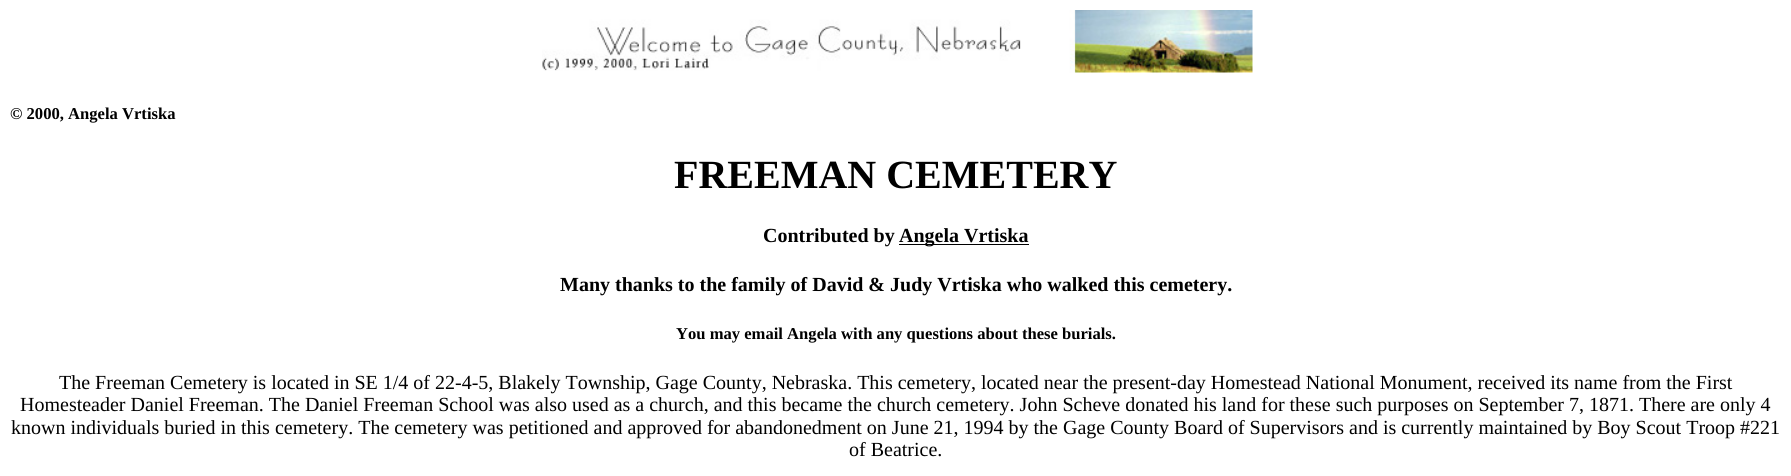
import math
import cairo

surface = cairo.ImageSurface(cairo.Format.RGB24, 1791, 476)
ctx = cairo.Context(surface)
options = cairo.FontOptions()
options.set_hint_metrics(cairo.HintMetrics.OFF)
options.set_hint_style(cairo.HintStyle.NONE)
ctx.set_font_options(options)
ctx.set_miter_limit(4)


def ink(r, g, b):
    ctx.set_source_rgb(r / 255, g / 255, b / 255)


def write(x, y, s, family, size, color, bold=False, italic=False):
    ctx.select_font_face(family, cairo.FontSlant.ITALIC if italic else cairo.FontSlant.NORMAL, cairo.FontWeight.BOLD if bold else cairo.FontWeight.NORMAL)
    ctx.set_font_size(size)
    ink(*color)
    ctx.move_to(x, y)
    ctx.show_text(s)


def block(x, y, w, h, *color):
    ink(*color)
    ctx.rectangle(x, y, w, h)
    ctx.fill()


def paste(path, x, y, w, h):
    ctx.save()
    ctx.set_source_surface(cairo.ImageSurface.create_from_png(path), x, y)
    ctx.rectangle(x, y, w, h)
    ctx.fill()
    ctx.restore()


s1 = dict(family="Liberation Serif", size=16.6, color=(0, 0, 0), bold=True)
s2 = dict(family="Liberation Serif", size=40, color=(0, 0, 0), bold=True)
s3 = dict(family="Liberation Serif", size=20, color=(0, 0, 0), bold=True)
s4 = dict(family="Liberation Serif", size=20, color=(0, 0, 0))

ink(255, 255, 255)
ctx.paint()
paste("pic1.png", 542, 10, 711, 63)
write(10, 119, "© 2000, Angela Vrtiska", **s1)
write(674, 188, "FREEMAN CEMETERY", **s2)
write(763, 242, "Contributed by", **s3)
block(899, 244, 130, 1, 0, 0, 0)
write(899, 242, "Angela Vrtiska", **s3)
write(560, 291, "Many thanks to the family of David & Judy Vrtiska who walked this cemetery.", **s3)
write(676, 339, "You may email Angela with any questions about these burials.", **s1)
write(59, 389, "The Freeman Cemetery is located in SE 1/4 of 22-4-5, Blakely Township, Gage County, Nebraska. This cemetery, located near the present-day Homestead National Monument, received its name from the First", **s4)
write(20, 411, "Homesteader Daniel Freeman. The Daniel Freeman School was also used as a church, and this became the church cemetery. John Scheve donated his land for these such purposes on September 7, 1871. There are only 4", **s4)
write(11, 434, "known individuals buried in this cemetery. The cemetery was petitioned and approved for abandonedment on June 21, 1994 by the Gage County Board of Supervisors and is currently maintained by Boy Scout Troop #221", **s4)
write(849, 456, "of Beatrice.", **s4)
surface.write_to_png("screenshot.png")
